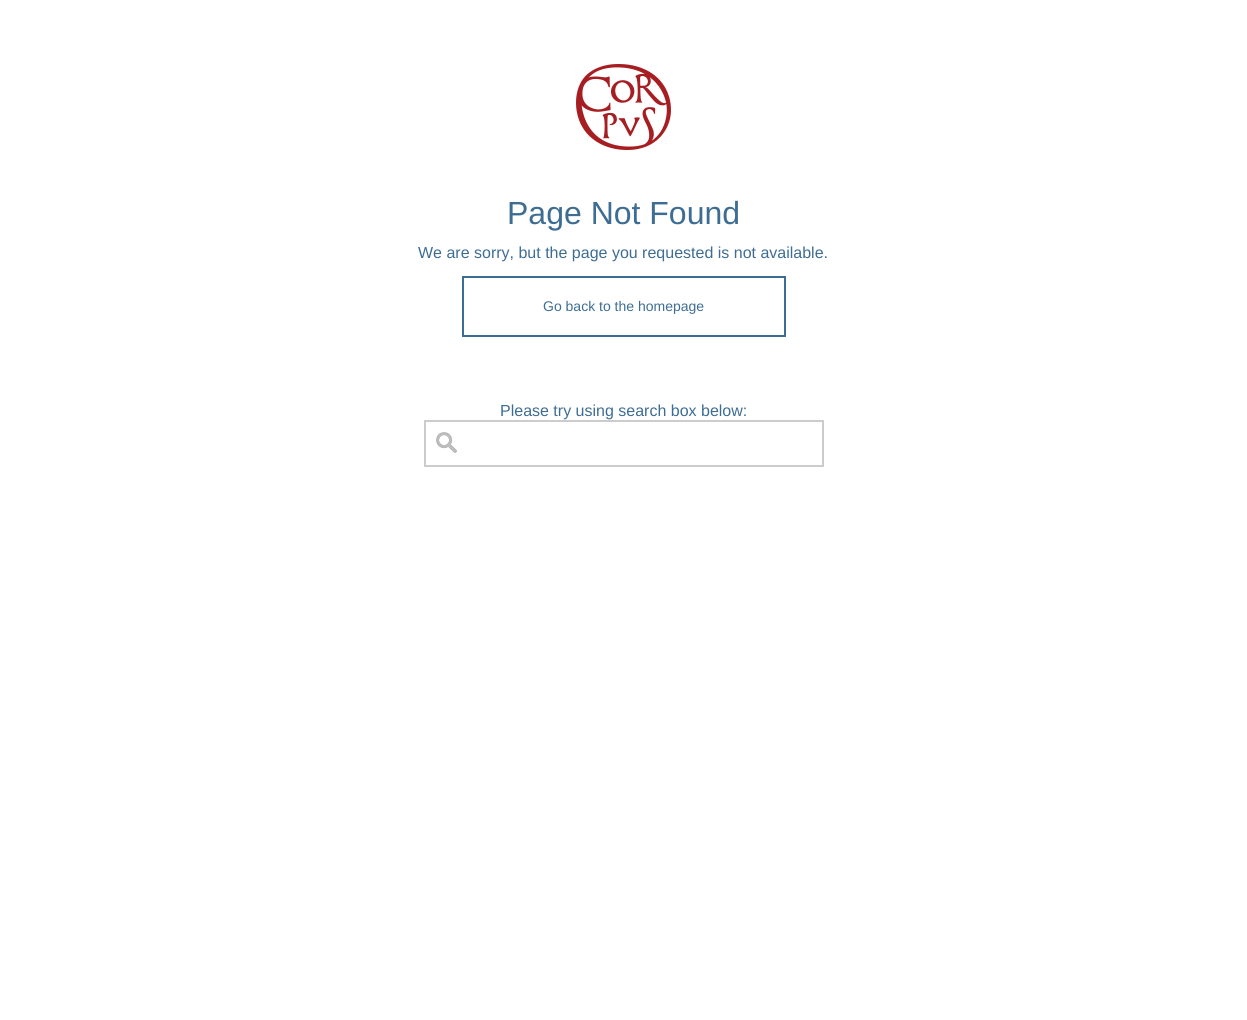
import math
import cairo

surface = cairo.ImageSurface(cairo.Format.RGB24, 1247, 1020)
ctx = cairo.Context(surface)
options = cairo.FontOptions()
options.set_hint_metrics(cairo.HintMetrics.OFF)
options.set_hint_style(cairo.HintStyle.NONE)
ctx.set_font_options(options)
ctx.set_miter_limit(4)


def ink(r, g, b):
    ctx.set_source_rgb(r / 255, g / 255, b / 255)


def write(x, y, s, family, size, color, bold=False, italic=False):
    ctx.select_font_face(family, cairo.FontSlant.ITALIC if italic else cairo.FontSlant.NORMAL, cairo.FontWeight.BOLD if bold else cairo.FontWeight.NORMAL)
    ctx.set_font_size(size)
    ink(*color)
    ctx.move_to(x, y)
    ctx.show_text(s)


def paste(path, x, y, w, h):
    ctx.save()
    ctx.set_source_surface(cairo.ImageSurface.create_from_png(path), x, y)
    ctx.rectangle(x, y, w, h)
    ctx.fill()
    ctx.restore()


s1 = dict(family="Liberation Sans", size=32, color=(62, 109, 147))
s2 = dict(family="Liberation Sans", size=16, color=(62, 109, 147))
s3 = dict(family="Liberation Sans", size=14, color=(62, 109, 147))

ink(255, 255, 255)
ctx.paint()
paste("pic1.png", 576, 64, 95, 86)
write(507, 224, "Page Not Found", **s1)
write(418, 258, "We are sorry, but the page you requested is not available.", **s2)
ctx.rectangle(463, 277, 322, 59)
ctx.stroke()
write(543, 311, "Go back to the homepage", **s3)
write(500, 416, "Please try using search box below:", **s2)
ctx.rectangle(425, 421, 398, 45)
ink(204, 204, 204)
ctx.stroke()
paste("pic2.png", 436, 432, 21, 21)
surface.write_to_png("screenshot.png")
